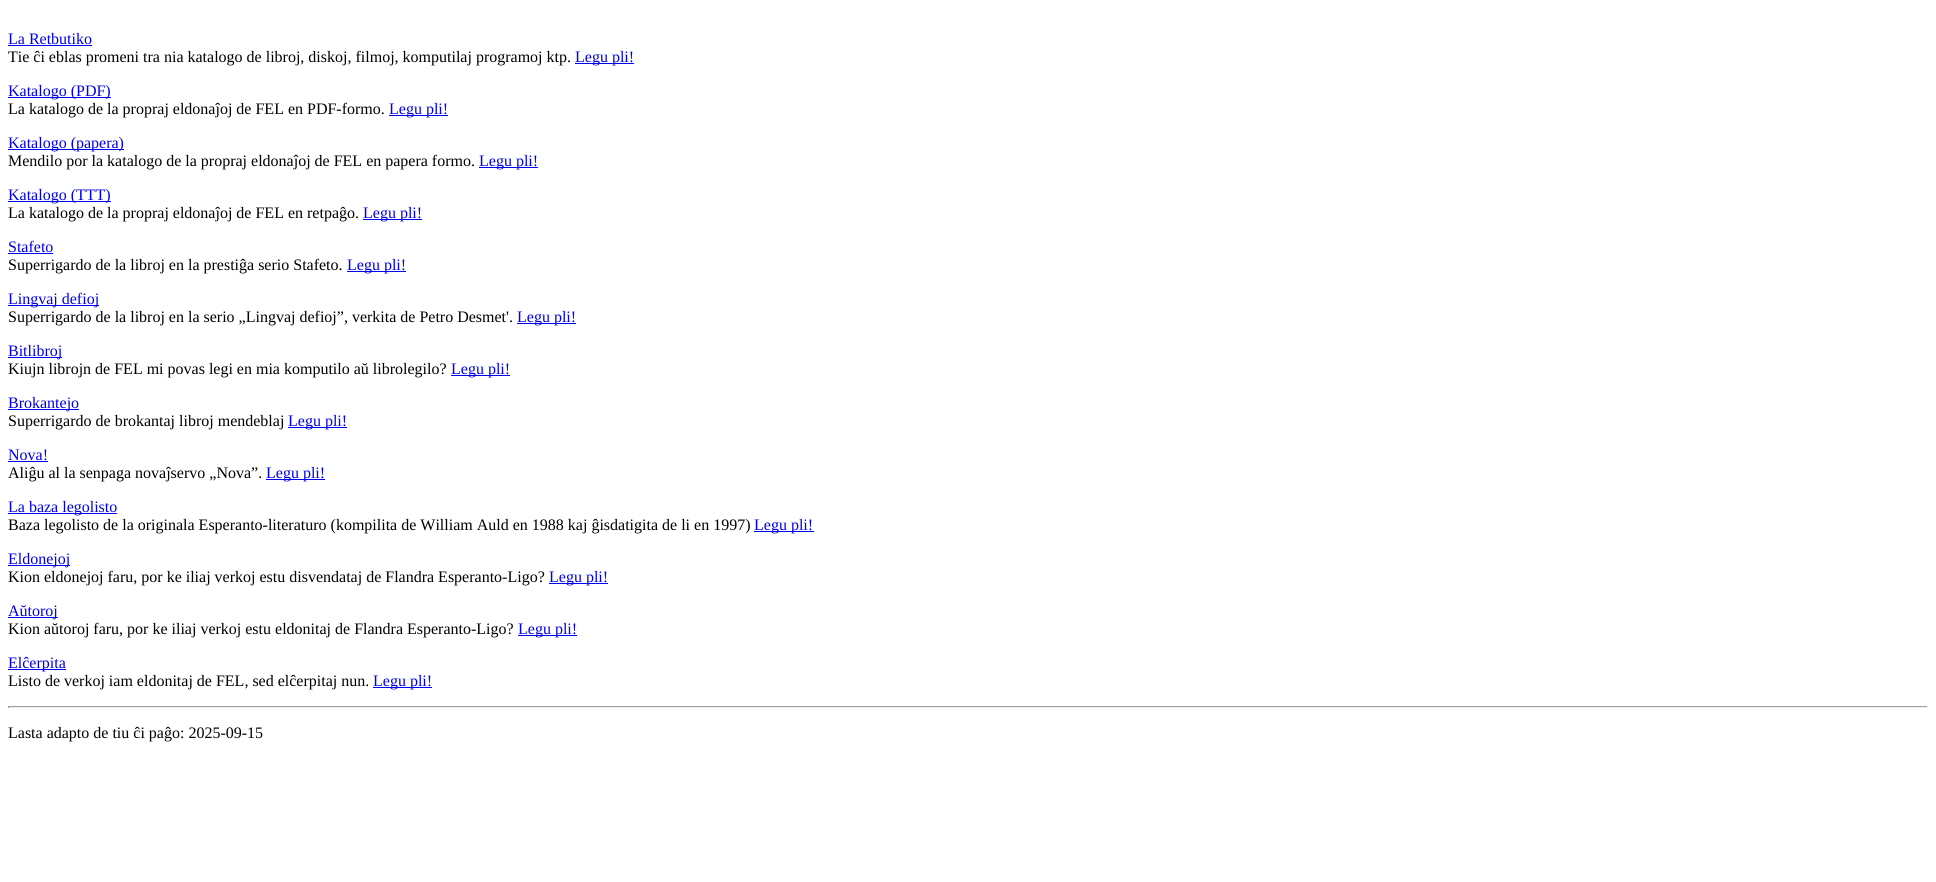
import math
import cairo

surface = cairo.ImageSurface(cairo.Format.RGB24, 1936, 882)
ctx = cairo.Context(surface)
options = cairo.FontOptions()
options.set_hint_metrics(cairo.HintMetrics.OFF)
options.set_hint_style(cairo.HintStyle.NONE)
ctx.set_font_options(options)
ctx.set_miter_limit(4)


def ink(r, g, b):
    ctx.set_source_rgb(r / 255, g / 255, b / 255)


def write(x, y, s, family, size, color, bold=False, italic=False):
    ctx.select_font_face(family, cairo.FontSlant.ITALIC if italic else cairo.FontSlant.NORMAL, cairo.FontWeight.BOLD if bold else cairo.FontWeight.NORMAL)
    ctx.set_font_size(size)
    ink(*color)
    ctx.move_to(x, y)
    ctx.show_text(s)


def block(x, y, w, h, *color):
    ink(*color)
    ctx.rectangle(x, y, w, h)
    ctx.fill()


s1 = dict(family="Liberation Serif", size=16, color=(0, 0, 238))
s2 = dict(family="Liberation Serif", size=16, color=(0, 0, 0))

ink(255, 255, 255)
ctx.paint()
write(8, 44, "La Retbutiko", **s1)
block(8, 45, 84, 1, 0, 0, 238)
write(8, 62, "Tie ĉi eblas promeni tra nia katalogo de libroj, diskoj, filmoj, komputilaj programoj ktp.", **s2)
block(575, 63, 59, 1, 0, 0, 238)
write(575, 62, "Legu pli!", **s1)
block(8, 97, 103, 1, 0, 0, 238)
write(8, 96, "Katalogo (PDF)", **s1)
write(8, 114, "La katalogo de la propraj eldonaĵoj de FEL en PDF-formo.", **s2)
block(389, 115, 59, 1, 0, 0, 238)
write(389, 114, "Legu pli!", **s1)
block(8, 149, 116, 1, 0, 0, 238)
write(8, 148, "Katalogo (papera)", **s1)
write(8, 166, "Mendilo por la katalogo de la propraj eldonaĵoj de FEL en papera formo.", **s2)
block(479, 167, 59, 1, 0, 0, 238)
write(479, 166, "Legu pli!", **s1)
block(8, 201, 103, 1, 0, 0, 238)
write(8, 200, "Katalogo (TTT)", **s1)
write(8, 218, "La katalogo de la propraj eldonaĵoj de FEL en retpaĝo.", **s2)
block(363, 219, 59, 1, 0, 0, 238)
write(363, 218, "Legu pli!", **s1)
write(8, 252, "Stafeto", **s1)
block(8, 253, 45, 1, 0, 0, 238)
write(8, 270, "Superrigardo de la libroj en la prestiĝa serio Stafeto.", **s2)
block(347, 271, 59, 1, 0, 0, 238)
write(347, 270, "Legu pli!", **s1)
block(8, 305, 91, 1, 0, 0, 238)
write(8, 304, "Lingvaj defioj", **s1)
write(8, 322, "Superrigardo de la libroj en la serio „Lingvaj defioj”, verkita de Petro Desmet'.", **s2)
block(517, 323, 59, 1, 0, 0, 238)
write(517, 322, "Legu pli!", **s1)
block(8, 357, 54, 1, 0, 0, 238)
write(8, 356, "Bitlibroj", **s1)
write(8, 374, "Kiujn librojn de FEL mi povas legi en mia komputilo aŭ librolegilo?", **s2)
block(451, 375, 59, 1, 0, 0, 238)
write(451, 374, "Legu pli!", **s1)
block(8, 409, 71, 1, 0, 0, 238)
write(8, 408, "Brokantejo", **s1)
write(8, 426, "Superrigardo de brokantaj libroj mendeblaj", **s2)
block(288, 427, 59, 1, 0, 0, 238)
write(288, 426, "Legu pli!", **s1)
write(8, 460, "Nova!", **s1)
block(8, 461, 40, 1, 0, 0, 238)
write(8, 478, "Aliĝu al la senpaga novaĵservo „Nova”.", **s2)
block(266, 479, 59, 1, 0, 0, 238)
write(266, 478, "Legu pli!", **s1)
block(8, 513, 109, 1, 0, 0, 238)
write(8, 512, "La baza legolisto", **s1)
write(8, 530, "Baza legolisto de la originala Esperanto-literaturo (kompilita de William Auld en 1988 kaj ĝisdatigita de li en 1997)", **s2)
block(754, 531, 60, 1, 0, 0, 238)
write(754, 530, "Legu pli!", **s1)
block(8, 565, 62, 1, 0, 0, 238)
write(8, 564, "Eldonejoj", **s1)
write(8, 582, "Kion eldonejoj faru, por ke iliaj verkoj estu disvendataj de Flandra Esperanto-Ligo?", **s2)
block(549, 583, 59, 1, 0, 0, 238)
write(549, 582, "Legu pli!", **s1)
block(8, 617, 50, 1, 0, 0, 238)
write(8, 616, "Aŭtoroj", **s1)
write(8, 634, "Kion aŭtoroj faru, por ke iliaj verkoj estu eldonitaj de Flandra Esperanto-Ligo?", **s2)
block(518, 635, 59, 1, 0, 0, 238)
write(518, 634, "Legu pli!", **s1)
block(8, 669, 58, 1, 0, 0, 238)
write(8, 668, "Elĉerpita", **s1)
write(8, 686, "Listo de verkoj iam eldonitaj de FEL, sed elĉerpitaj nun.", **s2)
block(373, 687, 59, 1, 0, 0, 238)
write(373, 686, "Legu pli!", **s1)
block(8, 706, 1920, 1, 159, 159, 159)
block(1927, 706, 1, 2, 238, 238, 238)
block(8, 707, 1920, 1, 238, 238, 238)
block(8, 706, 1, 2, 159, 159, 159)
write(8, 738, "Lasta adapto de tiu ĉi paĝo: 2025-09-15", **s2)
surface.write_to_png("screenshot.png")
